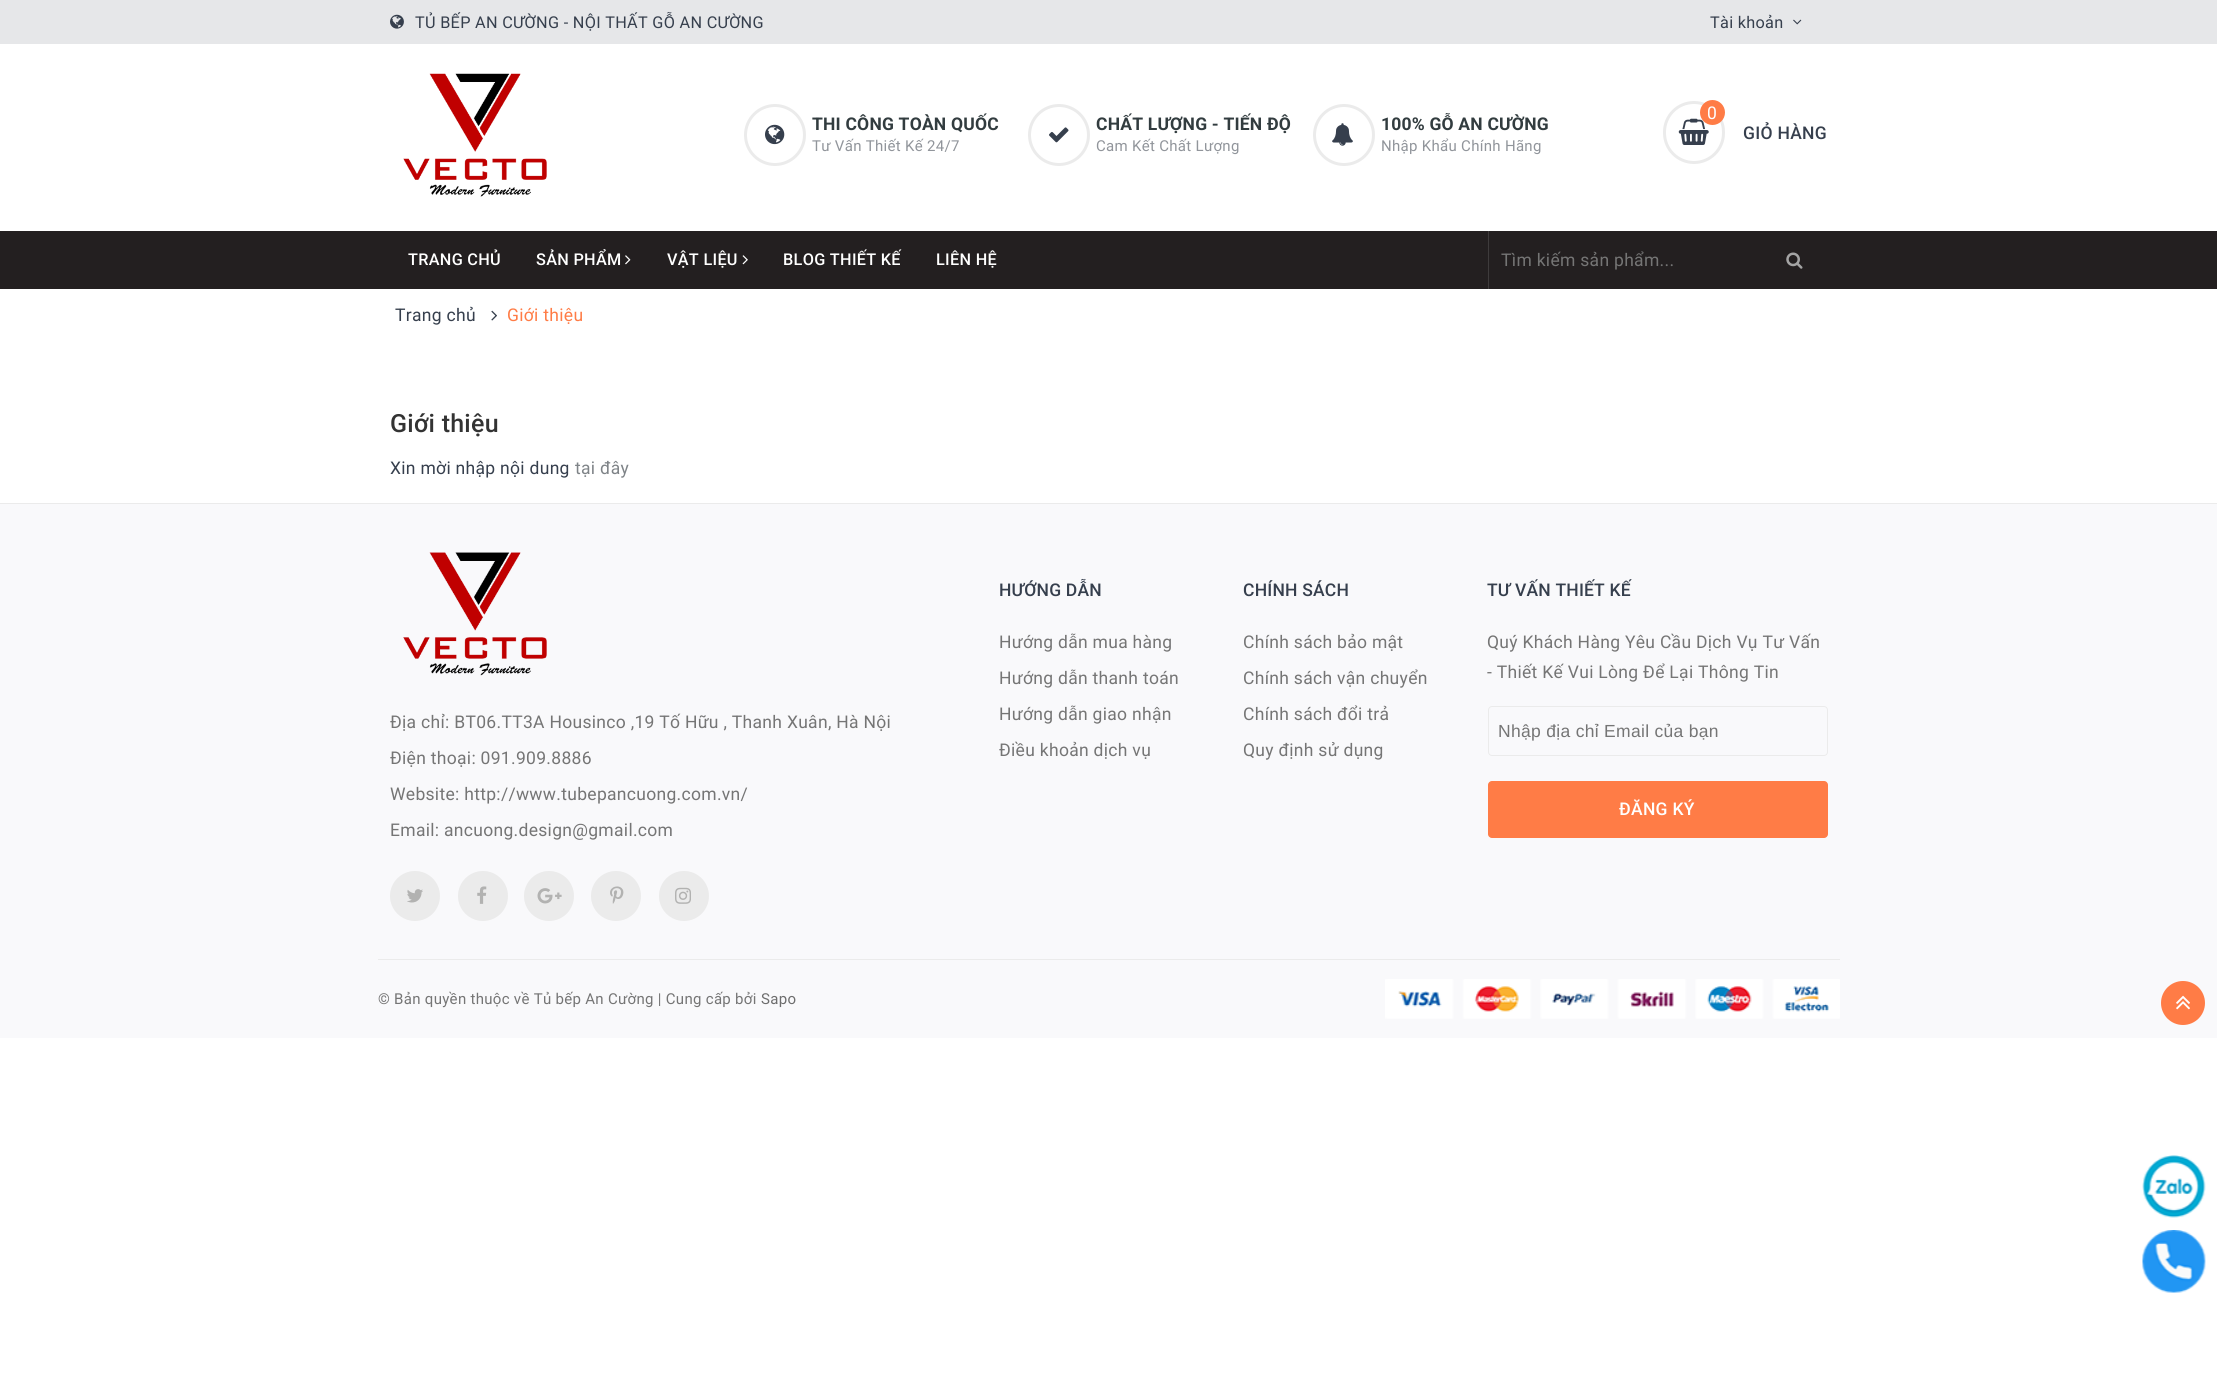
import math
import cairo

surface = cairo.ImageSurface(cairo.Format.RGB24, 2217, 1392)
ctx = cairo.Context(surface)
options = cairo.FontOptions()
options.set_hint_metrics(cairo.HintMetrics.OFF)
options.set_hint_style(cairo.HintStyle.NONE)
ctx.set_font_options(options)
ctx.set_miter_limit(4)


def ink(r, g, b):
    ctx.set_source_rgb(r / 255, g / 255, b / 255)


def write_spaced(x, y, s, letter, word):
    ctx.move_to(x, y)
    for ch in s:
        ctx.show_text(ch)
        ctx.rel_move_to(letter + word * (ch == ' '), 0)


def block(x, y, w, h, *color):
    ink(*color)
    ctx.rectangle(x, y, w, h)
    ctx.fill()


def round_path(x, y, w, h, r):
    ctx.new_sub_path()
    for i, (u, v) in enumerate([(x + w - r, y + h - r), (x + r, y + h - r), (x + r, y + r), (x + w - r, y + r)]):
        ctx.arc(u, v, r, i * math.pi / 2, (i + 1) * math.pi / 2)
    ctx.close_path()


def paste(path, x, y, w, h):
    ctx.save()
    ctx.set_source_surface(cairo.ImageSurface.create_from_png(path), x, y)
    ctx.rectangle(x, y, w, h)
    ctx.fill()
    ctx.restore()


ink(255, 255, 255)
ctx.paint()
block(0, 0, 2217, 44, 230, 231, 233)
paste("pic1.png", 390, 14, 14, 15)
ctx.select_font_face("Roboto")
ctx.set_font_size(16.25)
ink(54, 63, 77)
write_spaced(415, 28, "TỦ BẾP AN CƯỜNG - NỘI THẤT GỖ AN CƯỜNG", 0.3, 0)
write_spaced(1710, 28, "Tài khoản", 0.3, 0)
paste("pic2.png", 1793, 19, 9, 6)
paste("pic3.png", 403, 73, 144, 124)
ctx.arc(775, 135, 29.5, 0, 2 * math.pi)
ink(235, 235, 235)
ctx.set_line_width(3)
ctx.stroke()
paste("pic4.png", 765, 124, 20, 21)
ctx.select_font_face("Roboto", cairo.FontSlant.NORMAL, cairo.FontWeight.BOLD)
ctx.set_font_size(17.5)
ink(50, 60, 63)
write_spaced(812, 130, "THI CÔNG TOÀN QUỐC", 0.2, 0)
ctx.select_font_face("Roboto")
ctx.set_font_size(15)
ink(145, 149, 155)
write_spaced(812, 151, "Tư Vấn Thiết Kế 24/7", 0.3, 0)
ctx.new_path()
ctx.arc(1059, 135, 29.5, 0, 2 * math.pi)
ink(235, 235, 235)
ctx.stroke()
paste("pic5.png", 1049, 127, 20, 16)
ctx.select_font_face("Roboto", cairo.FontSlant.NORMAL, cairo.FontWeight.BOLD)
ctx.set_font_size(17.5)
ink(50, 60, 63)
write_spaced(1096, 130, "CHẤT LƯỢNG - TIẾN ĐỘ", 0.2, 0)
ctx.select_font_face("Roboto")
ctx.set_font_size(15)
ink(145, 149, 155)
write_spaced(1096, 151, "Cam Kết Chất Lượng", 0.3, 0)
ctx.new_path()
ctx.arc(1344, 135, 29.5, 0, 2 * math.pi)
ink(235, 235, 235)
ctx.stroke()
paste("pic6.png", 1332, 123, 21, 23)
ctx.select_font_face("Roboto", cairo.FontSlant.NORMAL, cairo.FontWeight.BOLD)
ctx.set_font_size(17.5)
ink(50, 60, 63)
write_spaced(1381, 130, "100% GỖ AN CƯỜNG", 0.2, 0)
ctx.select_font_face("Roboto")
ctx.set_font_size(15)
ink(145, 149, 155)
write_spaced(1381, 151, "Nhập Khẩu Chính Hãng", 0.3, 0)
round_path(1664.5, 102.5, 59, 60, 29.5)
ink(235, 235, 235)
ctx.stroke()
paste("pic7.png", 1678, 118, 31, 27)
ink(255, 124, 70)
ctx.arc(1712.5, 112.5, 12.5, 0, 2 * math.pi)
ctx.fill()
ctx.set_font_size(17.5)
ink(255, 255, 255)
write_spaced(1707, 119, "0", 0.3, 0)
ctx.select_font_face("Roboto Medium")
ink(54, 63, 77)
write_spaced(1743, 139, "GIỎ HÀNG", 0.3, 0)
block(0, 231, 2217, 58, 35, 31, 32)
ctx.set_font_size(16.25)
ink(255, 255, 255)
write_spaced(408, 265, "TRANG CHỦ", 0.3, 0)
write_spaced(536, 265, "SẢN PHẨM", 0.3, 0)
paste("pic8.png", 625, 255, 6, 10)
write_spaced(667, 265, "VẬT LIỆU", 0.3, 0)
paste("pic9.png", 742, 255, 6, 10)
write_spaced(783, 265, "BLOG THIẾT KẾ", 0.3, 0)
write_spaced(936, 265, "LIÊN HỆ", 0.3, 0)
block(1488, 231, 1, 58, 62, 59, 60)
ctx.select_font_face("Roboto")
ctx.set_font_size(17.5)
ink(117, 117, 117)
write_spaced(1501, 266, "Tìm kiếm sản phẩm...", 0.3, 0)
paste("pic10.png", 1786, 252, 17, 17)
ink(54, 63, 77)
write_spaced(395, 321, "Trang chủ", 0.3, 0)
paste("pic11.png", 491, 310, 6, 11)
ink(255, 124, 70)
write_spaced(507, 321, "Giới thiệu", 0.3, 0)
ctx.select_font_face("Roboto Medium")
ctx.set_font_size(25)
ink(51, 51, 51)
write_spaced(390, 432, "Giới thiệu", 0.25, 0)
ctx.select_font_face("Roboto")
ctx.set_font_size(17.5)
ink(54, 63, 77)
write_spaced(390, 474, "Xin mời nhập nội dung", 0.3, 0)
ink(126, 131, 135)
write_spaced(575, 474, "tại đây", 0.3, 0)
block(0, 504, 2217, 534, 249, 249, 251)
block(0, 503, 2217, 1, 235, 235, 235)
block(378, 959, 1462, 1, 235, 235, 235)
ctx.select_font_face("Roboto Medium")
ink(54, 63, 77)
write_spaced(999, 596, "HƯỚNG DẪN", 0.2, 0)
ctx.select_font_face("Roboto")
ink(117, 117, 117)
write_spaced(999, 648, "Hướng dẫn mua hàng", 0.3, 0)
write_spaced(999, 684, "Hướng dẫn thanh toán", 0.3, 0)
write_spaced(999, 720, "Hướng dẫn giao nhận", 0.3, 0)
write_spaced(999, 756, "Điều khoản dịch vụ", 0.3, 0)
ctx.select_font_face("Roboto Medium")
ink(54, 63, 77)
write_spaced(1243, 596, "CHÍNH SÁCH", 0.2, 0)
ctx.select_font_face("Roboto")
ink(117, 117, 117)
write_spaced(1243, 648, "Chính sách bảo mật", 0.3, 0)
write_spaced(1243, 684, "Chính sách vận chuyển", 0.3, 0)
write_spaced(1243, 720, "Chính sách đổi trả", 0.3, 0)
write_spaced(1243, 756, "Quy định sử dụng", 0.3, 0)
ctx.select_font_face("Roboto Medium")
ink(54, 63, 77)
write_spaced(1487, 596, "TƯ VẤN THIẾT KẾ", 0.2, 0)
ctx.select_font_face("Roboto")
ink(117, 117, 117)
write_spaced(1487, 648, "Quý Khách Hàng Yêu Cầu Dịch Vụ Tư Vấn", 0.3, 0)
write_spaced(1487, 678, "- Thiết Kế Vui Lòng Để Lại Thông Tin", 0.3, 0)
round_path(1488.5, 706.5, 339, 49, 3.5)
ink(235, 235, 235)
ctx.set_line_width(1)
ctx.stroke()
ctx.select_font_face("Liberation Sans")
ink(117, 117, 117)
write_spaced(1498, 737, "Nhập địa chỉ Email của bạn", 0.3, 0)
ink(255, 124, 70)
round_path(1488, 781, 340, 57, 4)
ctx.fill()
ctx.select_font_face("Roboto Medium")
ink(255, 255, 255)
write_spaced(1619, 815, "ĐĂNG KÝ", 0.3, 0)
paste("pic12.png", 403, 552, 144, 124)
ctx.select_font_face("Roboto")
ink(117, 117, 117)
write_spaced(390, 728, "Địa chỉ: BT06.TT3A Housinco ,19 Tố Hữu , Thanh Xuân, Hà Nội", 0.3, 0)
write_spaced(390, 764, "Điện thoại: 091.909.8886", 0.3, 0)
write_spaced(390, 800, "Website: http://www.tubepancuong.com.vn/", 0.3, 0)
write_spaced(390, 836, "Email: ancuong.design@gmail.com", 0.3, 0)
ink(235, 235, 235)
ctx.new_path()
ctx.arc(415, 896, 25, 0, 2 * math.pi)
ctx.fill()
paste("pic13.png", 407, 889, 16, 14)
ctx.arc(483, 896, 25, 0, 2 * math.pi)
ctx.fill()
paste("pic14.png", 477, 886, 10, 18)
ctx.arc(549, 896, 25, 0, 2 * math.pi)
ctx.fill()
paste("pic15.png", 537, 888, 25, 16)
ctx.arc(616, 896, 25, 0, 2 * math.pi)
ctx.fill()
paste("pic16.png", 610, 886, 14, 18)
ctx.arc(684, 896, 25, 0, 2 * math.pi)
ctx.fill()
paste("pic17.png", 675, 887, 16, 17)
ctx.set_font_size(15)
ink(117, 117, 117)
write_spaced(378, 1004, "© Bản quyền thuộc về Tủ bếp An Cường | Cung cấp bởi", 0.3, 0)
ink(109, 109, 109)
write_spaced(761, 1004, "Sapo", 0.3, 0)
paste("pic18.png", 1385, 979, 455, 40)
ink(255, 124, 70)
ctx.arc(2183, 1003, 22, 0, 2 * math.pi)
ctx.fill()
paste("pic19.png", 2176, 995, 14, 15)
paste("pic20.png", 2142, 1155, 64, 63)
paste("pic21.png", 2142, 1230, 64, 63)
surface.write_to_png("screenshot.png")
